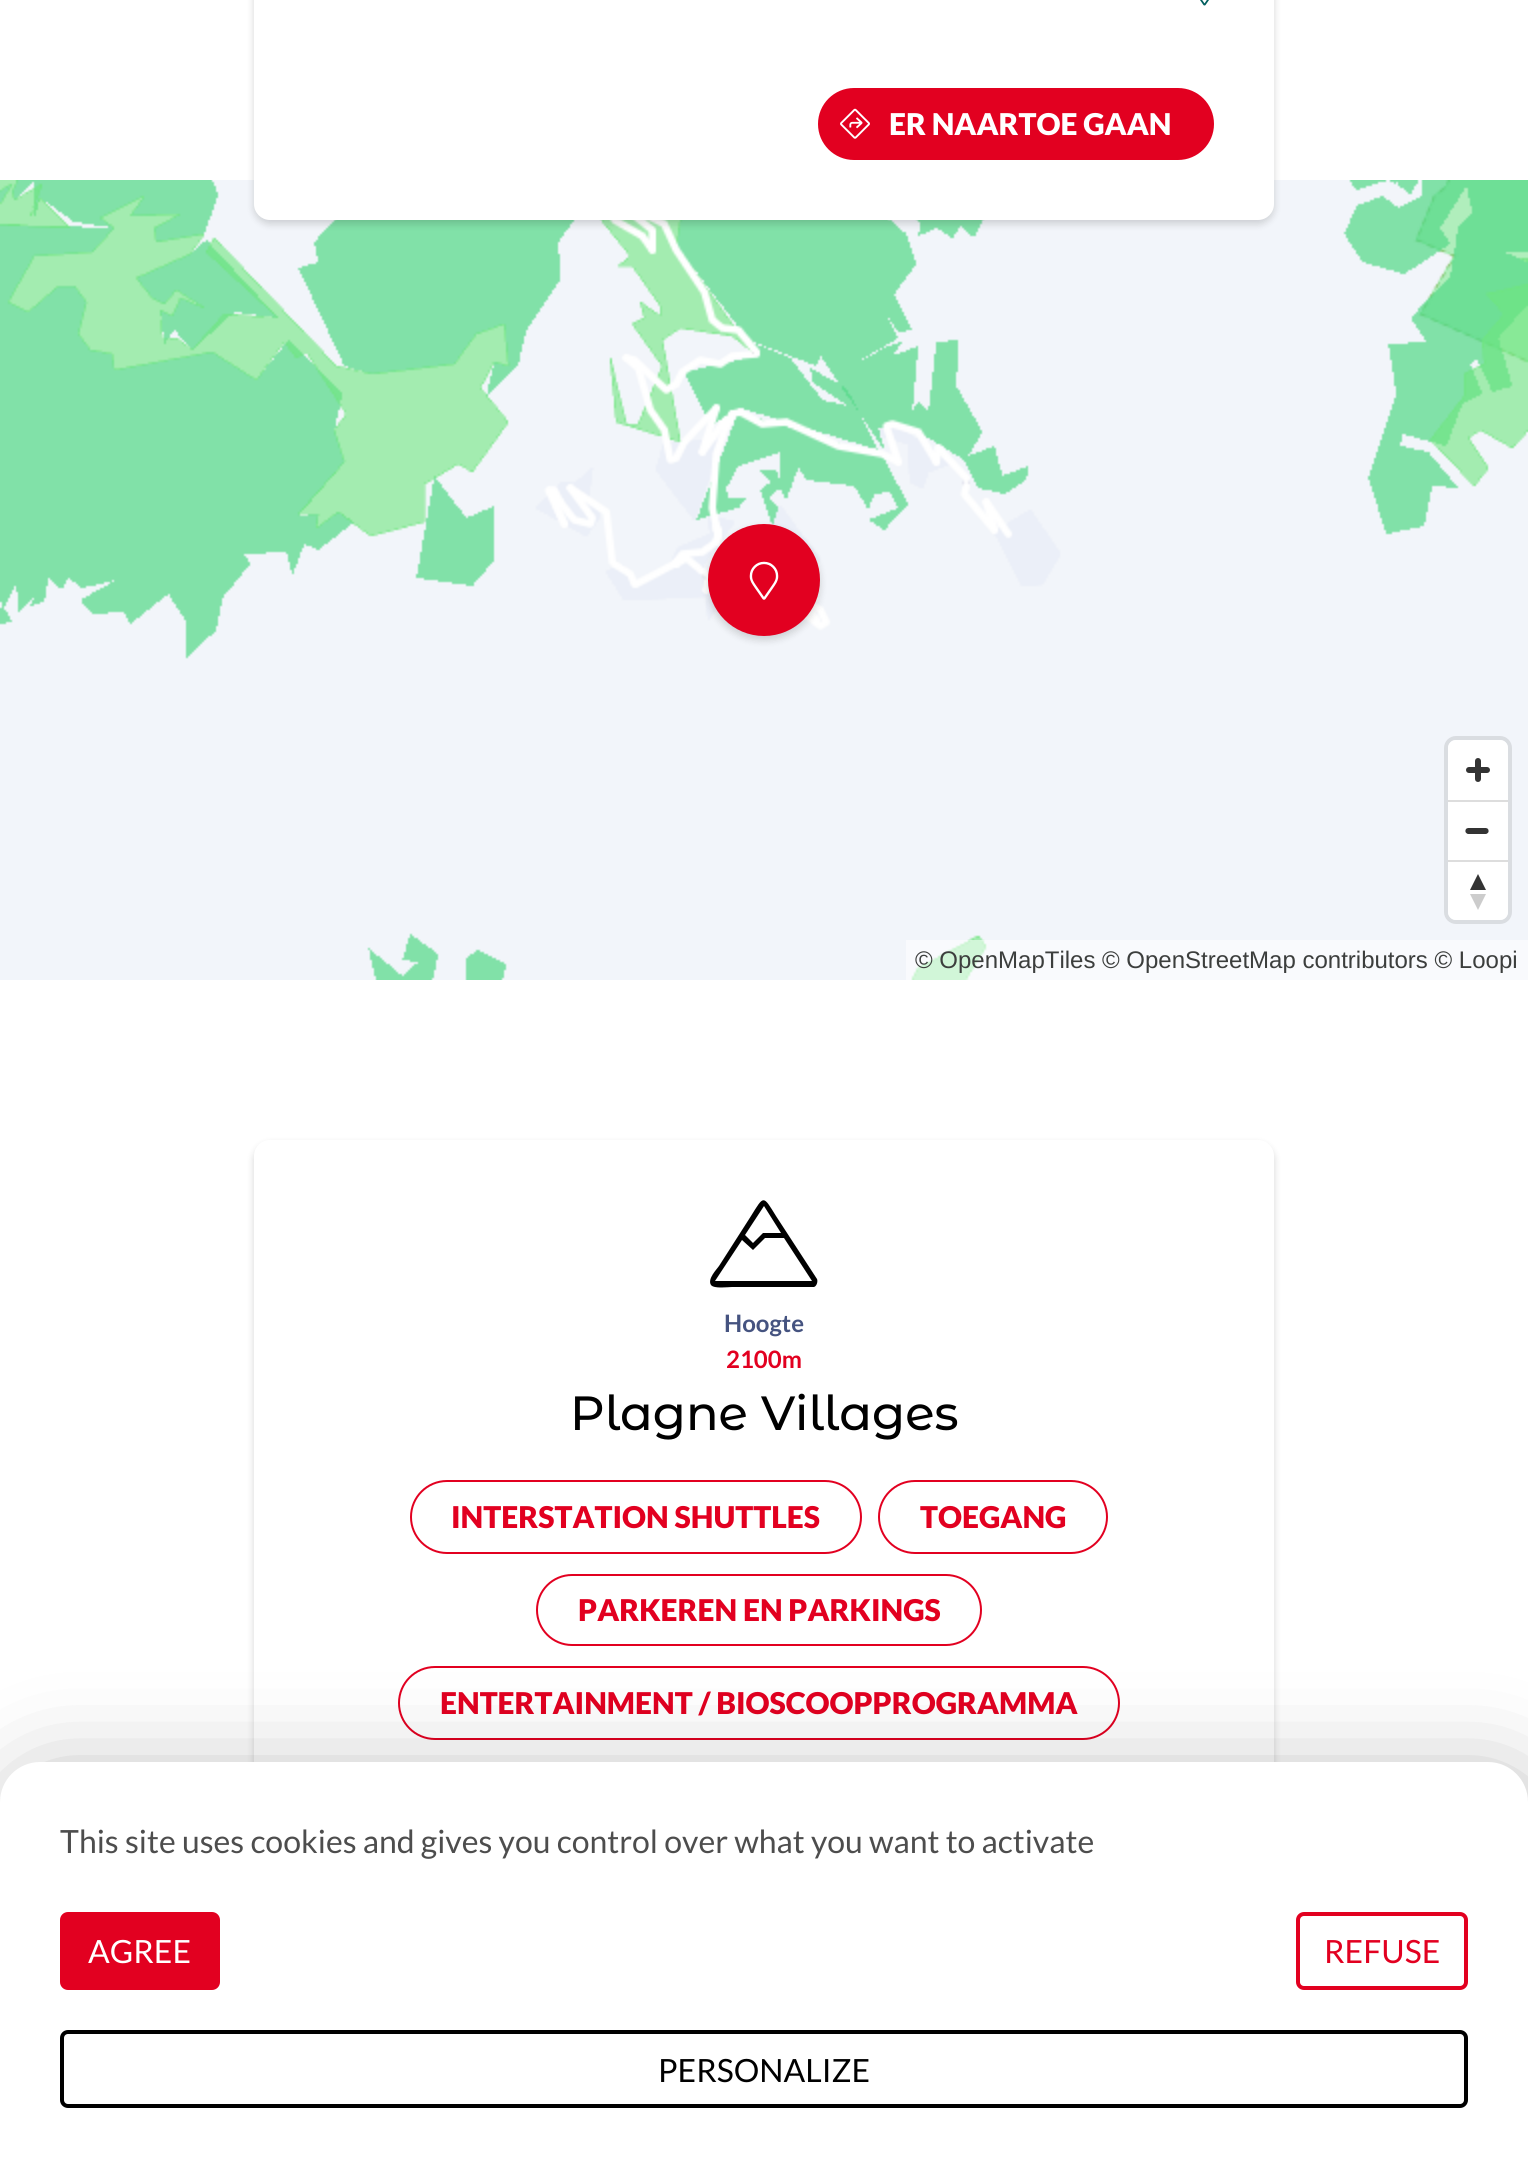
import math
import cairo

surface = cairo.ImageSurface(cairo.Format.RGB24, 1528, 2168)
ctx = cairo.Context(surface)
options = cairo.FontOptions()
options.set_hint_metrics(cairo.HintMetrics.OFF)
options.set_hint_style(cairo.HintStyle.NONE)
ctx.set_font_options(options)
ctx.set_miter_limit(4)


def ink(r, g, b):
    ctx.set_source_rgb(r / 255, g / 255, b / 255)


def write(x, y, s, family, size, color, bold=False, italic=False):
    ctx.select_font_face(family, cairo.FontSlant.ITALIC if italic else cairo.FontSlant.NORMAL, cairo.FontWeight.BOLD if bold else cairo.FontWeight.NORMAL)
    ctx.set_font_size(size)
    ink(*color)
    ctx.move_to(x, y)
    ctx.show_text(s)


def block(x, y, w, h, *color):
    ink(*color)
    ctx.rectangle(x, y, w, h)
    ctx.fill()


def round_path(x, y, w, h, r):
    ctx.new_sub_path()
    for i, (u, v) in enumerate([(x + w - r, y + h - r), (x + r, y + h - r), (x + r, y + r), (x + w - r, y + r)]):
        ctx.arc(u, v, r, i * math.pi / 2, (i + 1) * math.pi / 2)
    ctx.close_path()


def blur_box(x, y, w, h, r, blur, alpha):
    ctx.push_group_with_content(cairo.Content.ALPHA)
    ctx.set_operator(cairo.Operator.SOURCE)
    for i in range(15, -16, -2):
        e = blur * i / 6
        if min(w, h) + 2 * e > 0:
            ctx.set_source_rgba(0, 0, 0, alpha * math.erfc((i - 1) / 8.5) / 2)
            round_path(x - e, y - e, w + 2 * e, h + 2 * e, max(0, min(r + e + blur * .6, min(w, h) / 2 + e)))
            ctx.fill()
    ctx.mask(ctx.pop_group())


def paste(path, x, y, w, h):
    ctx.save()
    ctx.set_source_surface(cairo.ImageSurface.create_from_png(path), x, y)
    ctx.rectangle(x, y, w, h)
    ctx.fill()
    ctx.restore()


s1 = dict(family="Lato Black", size=30, color=(255, 255, 255))
s2 = dict(family="Liberation Sans", size=24, color=(60, 62, 61))
s3 = dict(family="Lato", size=24, color=(69, 83, 128), bold=True)
s4 = dict(family="Lato", size=24, color=(226, 0, 32), bold=True)
s5 = dict(family="Montserrat Alternates Medium", size=48, color=(0, 0, 0))
s6 = dict(family="Lato Black", size=30, color=(226, 0, 32))
s7 = dict(family="Lato", size=32, color=(77, 77, 77))
s8 = dict(family="Lato", size=32, color=(255, 255, 255))
s9 = dict(family="Lato", size=32, color=(226, 0, 32))
s10 = dict(family="Lato", size=32, color=(0, 0, 0))

ink(255, 255, 255)
ctx.paint()
paste("pic3.png", 0, 180, 1528, 800)
ink(0, 0, 0)
blur_box(254, -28, 1020, 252, 16, 4, 0.16)
ink(255, 255, 255)
round_path(254, -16, 1020, 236, 16)
ctx.fill()
paste("pic1.png", 1200, 0, 9, 6)
ink(226, 0, 32)
round_path(819, 89, 394, 70, 35)
ctx.fill_preserve()
ctx.stroke()
paste("pic2.png", 840, 108, 30, 31)
write(889, 135, "ER NAARTOE GAAN", **s1)
ink(0, 0, 0)
blur_box(708, 528, 112, 112, 56, 4, 0.16)
ink(226, 0, 32)
ctx.arc(764, 580, 56, 0, 2 * math.pi)
ctx.fill()
paste("pic4.png", 749, 561, 30, 39)
round_path(1446, 738, 64, 184, 10)
ink(218, 221, 225)
ctx.set_line_width(4)
ctx.stroke()
ink(255, 255, 255)
round_path(1448, 740, 60, 180, 8)
ctx.fill()
paste("pic5.png", 1466, 758, 24, 24)
paste("pic6.png", 1465, 828, 24, 6)
block(1448, 800, 60, 2, 221, 221, 221)
block(1448, 860, 60, 2, 221, 221, 221)
ink(51, 51, 51)
ctx.new_path()
ctx.move_to(1470, 890)
ctx.line_to(1478, 874)
ctx.line_to(1486, 890)
ctx.close_path()
ctx.fill()
ink(204, 204, 204)
ctx.new_path()
ctx.move_to(1470, 894)
ctx.line_to(1478, 910)
ctx.line_to(1486, 894)
ctx.close_path()
ctx.fill()
ctx.set_source_rgba(1, 1, 1, 0.5)
ctx.rectangle(906, 940, 622, 40)
ctx.fill()
write(915, 968, "© OpenMapTiles", **s2)
write(1102, 968, "© OpenStreetMap contributors © Loopi", **s2)
ink(0, 0, 0)
blur_box(254, 1144, 1020, 918, 16, 4, 0.16)
ink(255, 255, 255)
round_path(254, 1140, 1020, 918, 16)
ctx.fill()
ink(0, 0, 0)
ctx.new_path()
ctx.move_to(817, 1279)
ctx.curve_to(818, 1281, 817, 1286, 814, 1287)
ctx.line_to(732, 1287)
ctx.curve_to(728, 1287, 714, 1289, 711, 1285)
ctx.curve_to(707, 1279, 717, 1269, 719, 1266)
ctx.line_to(751, 1216)
ctx.curve_to(764, 1195, 763, 1195, 776, 1216)
ctx.close_path()
ctx.move_to(764, 1206)
ctx.line_to(745, 1235)
ctx.line_to(753, 1243)
ctx.line_to(763, 1233)
ctx.line_to(781, 1233)
ctx.close_path()
ctx.move_to(715, 1281)
ctx.line_to(812, 1281)
ctx.line_to(784, 1238)
ctx.line_to(765, 1238)
ctx.line_to(753, 1250)
ctx.line_to(742, 1240)
ctx.close_path()
ctx.fill()
write(724, 1332, "Hoogte", **s3)
write(726, 1368, "2100m", **s4)
write(570, 1430, "Plagne Villages", **s5)
round_path(411, 1481, 450, 72, 36)
ink(226, 0, 32)
ctx.set_line_width(2)
ctx.stroke()
write(451, 1528, "INTERSTATION SHUTTLES", **s6)
round_path(879, 1481, 228, 72, 36)
ctx.stroke()
write(920, 1528, "TOEGANG", **s6)
round_path(537, 1575, 444, 70, 35)
ctx.stroke()
write(578, 1621, "PARKEREN EN PARKINGS", **s6)
round_path(399, 1667, 720, 72, 36)
ctx.stroke()
write(440, 1714, "ENTERTAINMENT / BIOSCOOPPROGRAMMA", **s6)
ink(0, 0, 0)
blur_box(10, 1780, 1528, 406, 40, 50, 0.3)
ink(255, 255, 255)
ctx.new_path()
ctx.move_to(40, 1762)
ctx.line_to(1488, 1762)
ctx.curve_to(1510, 1762, 1528, 1780, 1528, 1802)
ctx.line_to(1528, 2168)
ctx.line_to(0, 2168)
ctx.line_to(0, 1802)
ctx.curve_to(0, 1780, 18, 1762, 40, 1762)
ctx.close_path()
ctx.fill()
write(60, 1853, "This site uses cookies and gives you control over what you want to activate", **s7)
ink(226, 0, 32)
round_path(62, 1914, 156, 74, 6)
ctx.fill_preserve()
ctx.set_line_width(4)
ctx.stroke()
write(88, 1963, "AGREE", **s8)
round_path(1298, 1914, 168, 74, 6)
ink(226, 0, 32)
ctx.stroke()
write(1324, 1963, "REFUSE", **s9)
round_path(62, 2032, 1404, 74, 6)
ink(0, 0, 0)
ctx.stroke()
write(658, 2082, "PERSONALIZE", **s10)
surface.write_to_png("screenshot.png")
